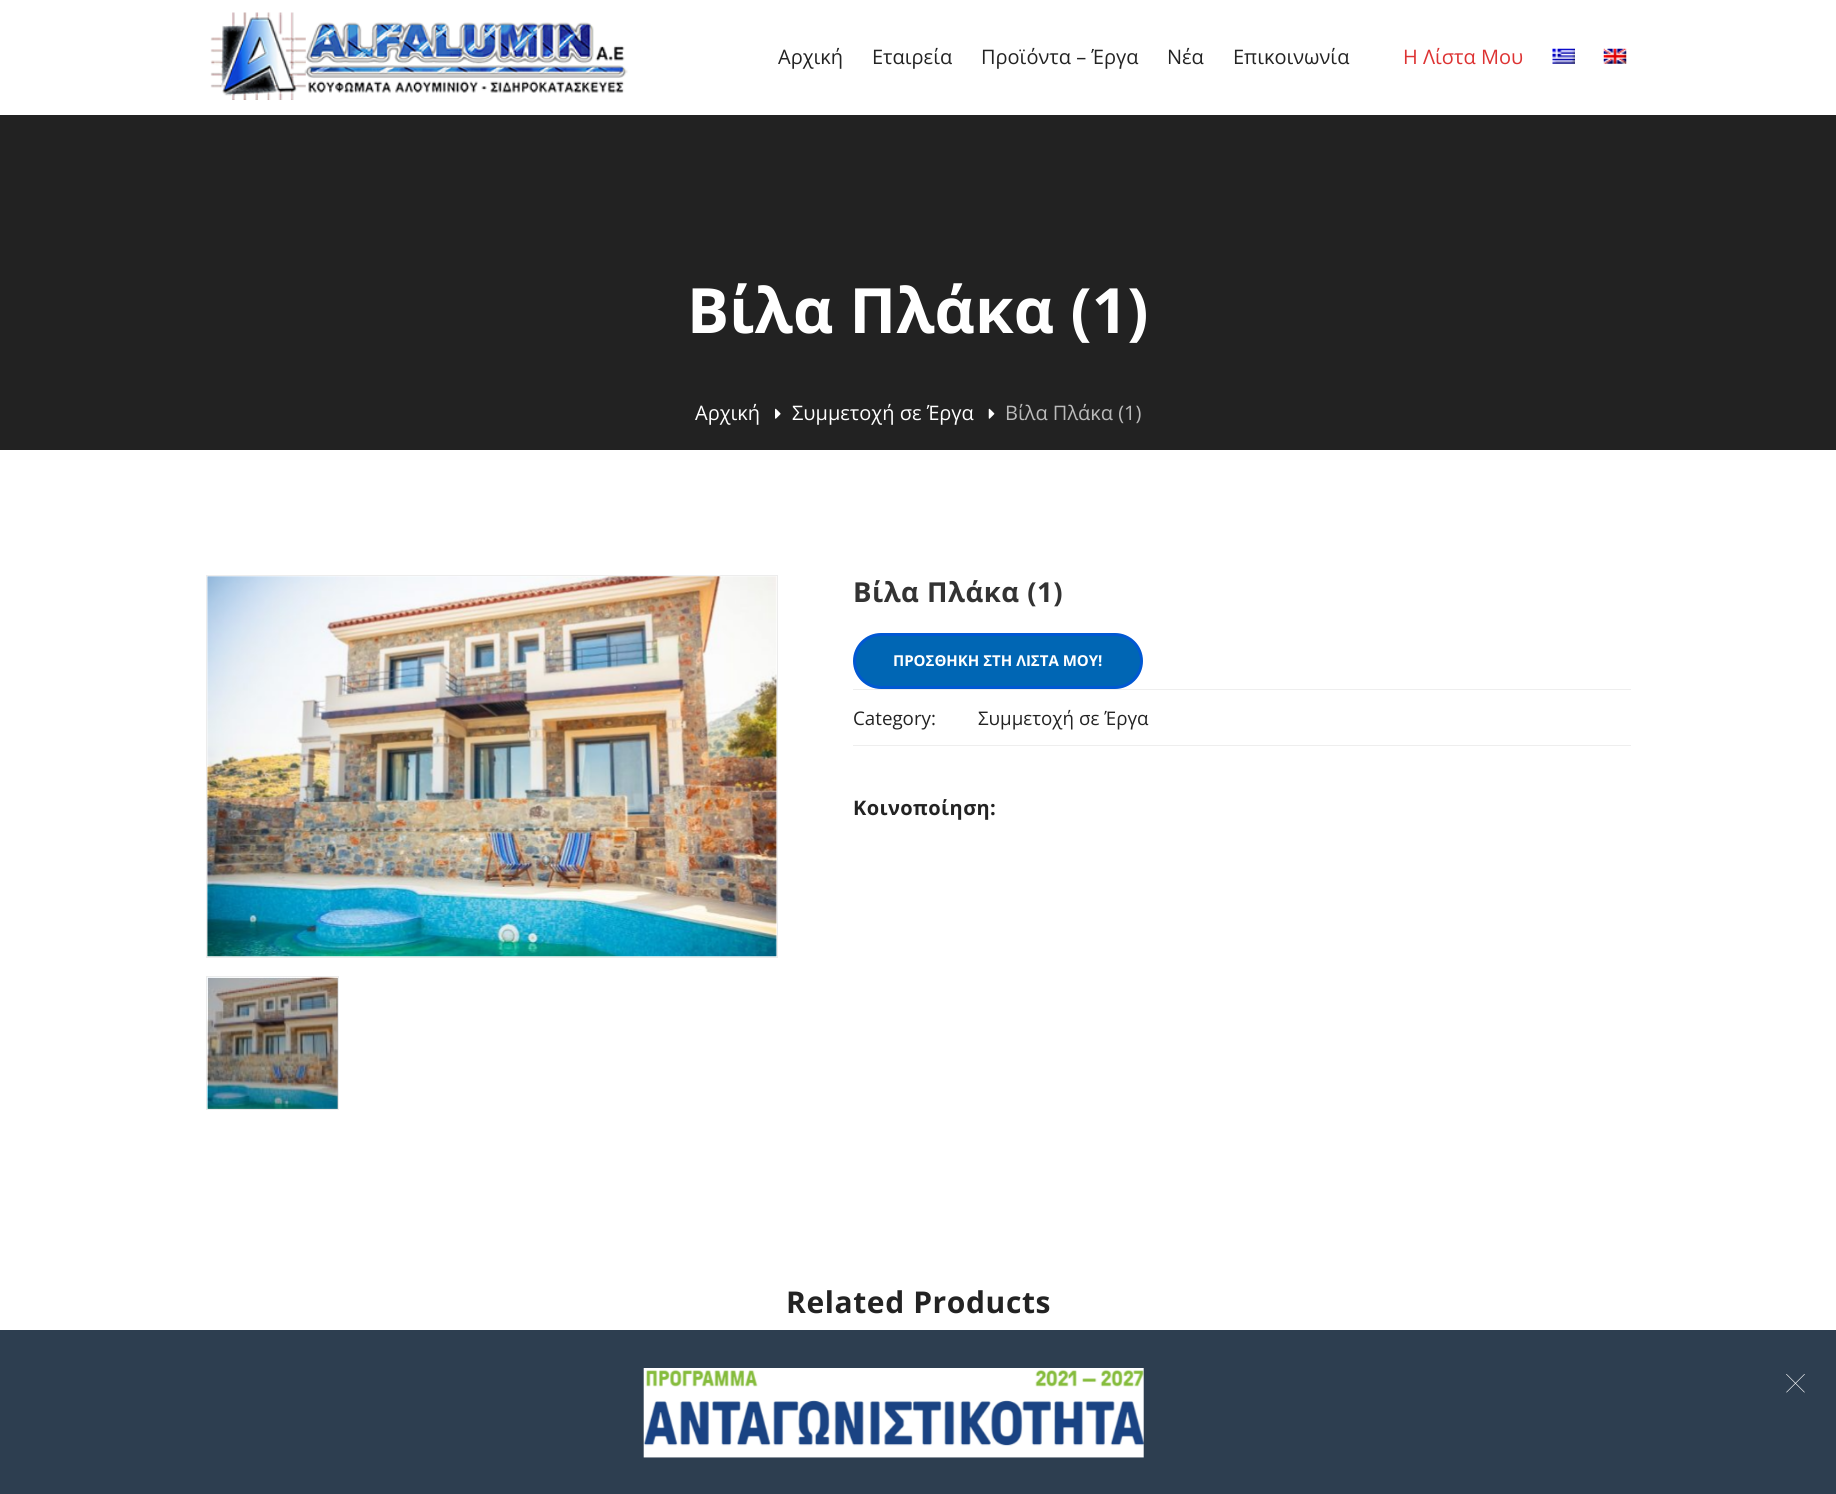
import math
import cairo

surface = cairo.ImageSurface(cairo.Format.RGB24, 1836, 1494)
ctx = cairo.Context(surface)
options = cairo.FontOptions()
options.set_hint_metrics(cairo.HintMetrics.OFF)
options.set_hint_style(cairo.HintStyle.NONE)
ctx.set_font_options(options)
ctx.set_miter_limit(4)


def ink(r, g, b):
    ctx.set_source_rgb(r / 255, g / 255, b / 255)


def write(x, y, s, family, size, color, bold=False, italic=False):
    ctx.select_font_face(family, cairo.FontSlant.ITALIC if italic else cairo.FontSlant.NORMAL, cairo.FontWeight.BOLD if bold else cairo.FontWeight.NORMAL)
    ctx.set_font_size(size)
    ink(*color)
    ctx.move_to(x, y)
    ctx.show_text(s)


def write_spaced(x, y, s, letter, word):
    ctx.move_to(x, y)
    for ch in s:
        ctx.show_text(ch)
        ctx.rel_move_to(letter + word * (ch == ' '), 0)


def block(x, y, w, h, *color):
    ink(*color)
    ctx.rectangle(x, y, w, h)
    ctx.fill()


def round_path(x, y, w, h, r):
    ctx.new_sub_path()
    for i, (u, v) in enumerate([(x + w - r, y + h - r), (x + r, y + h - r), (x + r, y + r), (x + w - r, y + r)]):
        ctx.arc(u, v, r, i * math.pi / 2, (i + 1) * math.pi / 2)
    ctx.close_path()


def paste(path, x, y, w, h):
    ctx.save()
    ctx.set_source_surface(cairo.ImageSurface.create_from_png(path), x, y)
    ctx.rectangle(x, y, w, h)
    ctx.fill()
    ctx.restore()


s1 = dict(family="Open Sans", size=20, color=(35, 35, 35))
s2 = dict(family="Open Sans", size=20, color=(221, 51, 51))
s3 = dict(family="Open Sans", size=62.5, color=(255, 255, 255), bold=True)
s4 = dict(family="Open Sans", size=20, color=(255, 255, 255))
s5 = dict(family="Open Sans", size=20, color=(186, 186, 186))
s6 = dict(family="Open Sans", size=15, color=(255, 255, 255), bold=True)
s7 = dict(family="Open Sans", size=18.75, color=(35, 35, 35))

ink(255, 255, 255)
ctx.paint()
block(208, 978, 130, 131, 179, 179, 179)
paste("pic1.png", 210, 12, 418, 88)
write(778, 64, "Αρχική", **s1)
write(872, 64, "Εταιρεία", **s1)
write(981, 64, "Προϊόντα – Έργα", **s1)
write(1167, 64, "Νέα", **s1)
write(1233, 64, "Επικοινωνία", **s1)
write(1403, 64, "H Λίστα Μου", **s2)
paste("pic2.png", 1552, 48, 23, 16)
paste("pic3.png", 1603, 48, 24, 16)
block(0, 115, 1836, 335, 34, 34, 34)
write(687, 333, "Βίλα Πλάκα (1)", **s3)
write(695, 420, "Αρχική", **s4)
paste("pic4.png", 775, 408, 6, 11)
write(792, 420, "Συμμετοχή σε Έργα", **s4)
paste("pic5.png", 988, 408, 7, 11)
write(1005, 420, "Βίλα Πλάκα (1)", **s5)
ctx.rectangle(206.5, 575.5, 571, 382)
ink(237, 237, 237)
ctx.set_line_width(1)
ctx.stroke()
paste("pic6.png", 207, 576, 570, 381)
ctx.rectangle(206.5, 976.5, 132, 133)
ctx.stroke()
paste("pic7.png", 206, 976, 132, 133)
ctx.select_font_face("Open Sans", cairo.FontSlant.NORMAL, cairo.FontWeight.BOLD)
ctx.set_font_size(27.5)
ink(51, 51, 51)
write_spaced(853, 602, "Βίλα Πλάκα (1)", 0.5, 0)
ink(0, 102, 180)
round_path(854.5, 634.5, 287, 53, 26.5)
ctx.fill_preserve()
ink(0, 88, 211)
ctx.set_line_width(3)
ctx.stroke()
write(893, 666, "ΠΡΟΣΘΗΚΗ ΣΤΗ ΛΙΣΤΑ ΜΟΥ!", **s6)
block(853, 689, 778, 1, 238, 238, 238)
block(853, 745, 778, 1, 238, 238, 238)
write(853, 725, "Category:", **s7)
write(978, 725, "Συμμετοχή σε Έργα", **s7)
ctx.select_font_face("Open Sans", cairo.FontSlant.NORMAL, cairo.FontWeight.BOLD)
ctx.set_font_size(20)
write_spaced(853, 815, "Κοινοποίηση:", 0.4, 0)
ctx.set_font_size(30)
write_spaced(786, 1313, "Related Products", 0.6, 0)
block(0, 1330, 1836, 164, 45, 62, 80)
paste("pic8.png", 643, 1368, 501, 90)
paste("pic9.png", 1786, 1374, 19, 19)
surface.write_to_png("screenshot.png")
